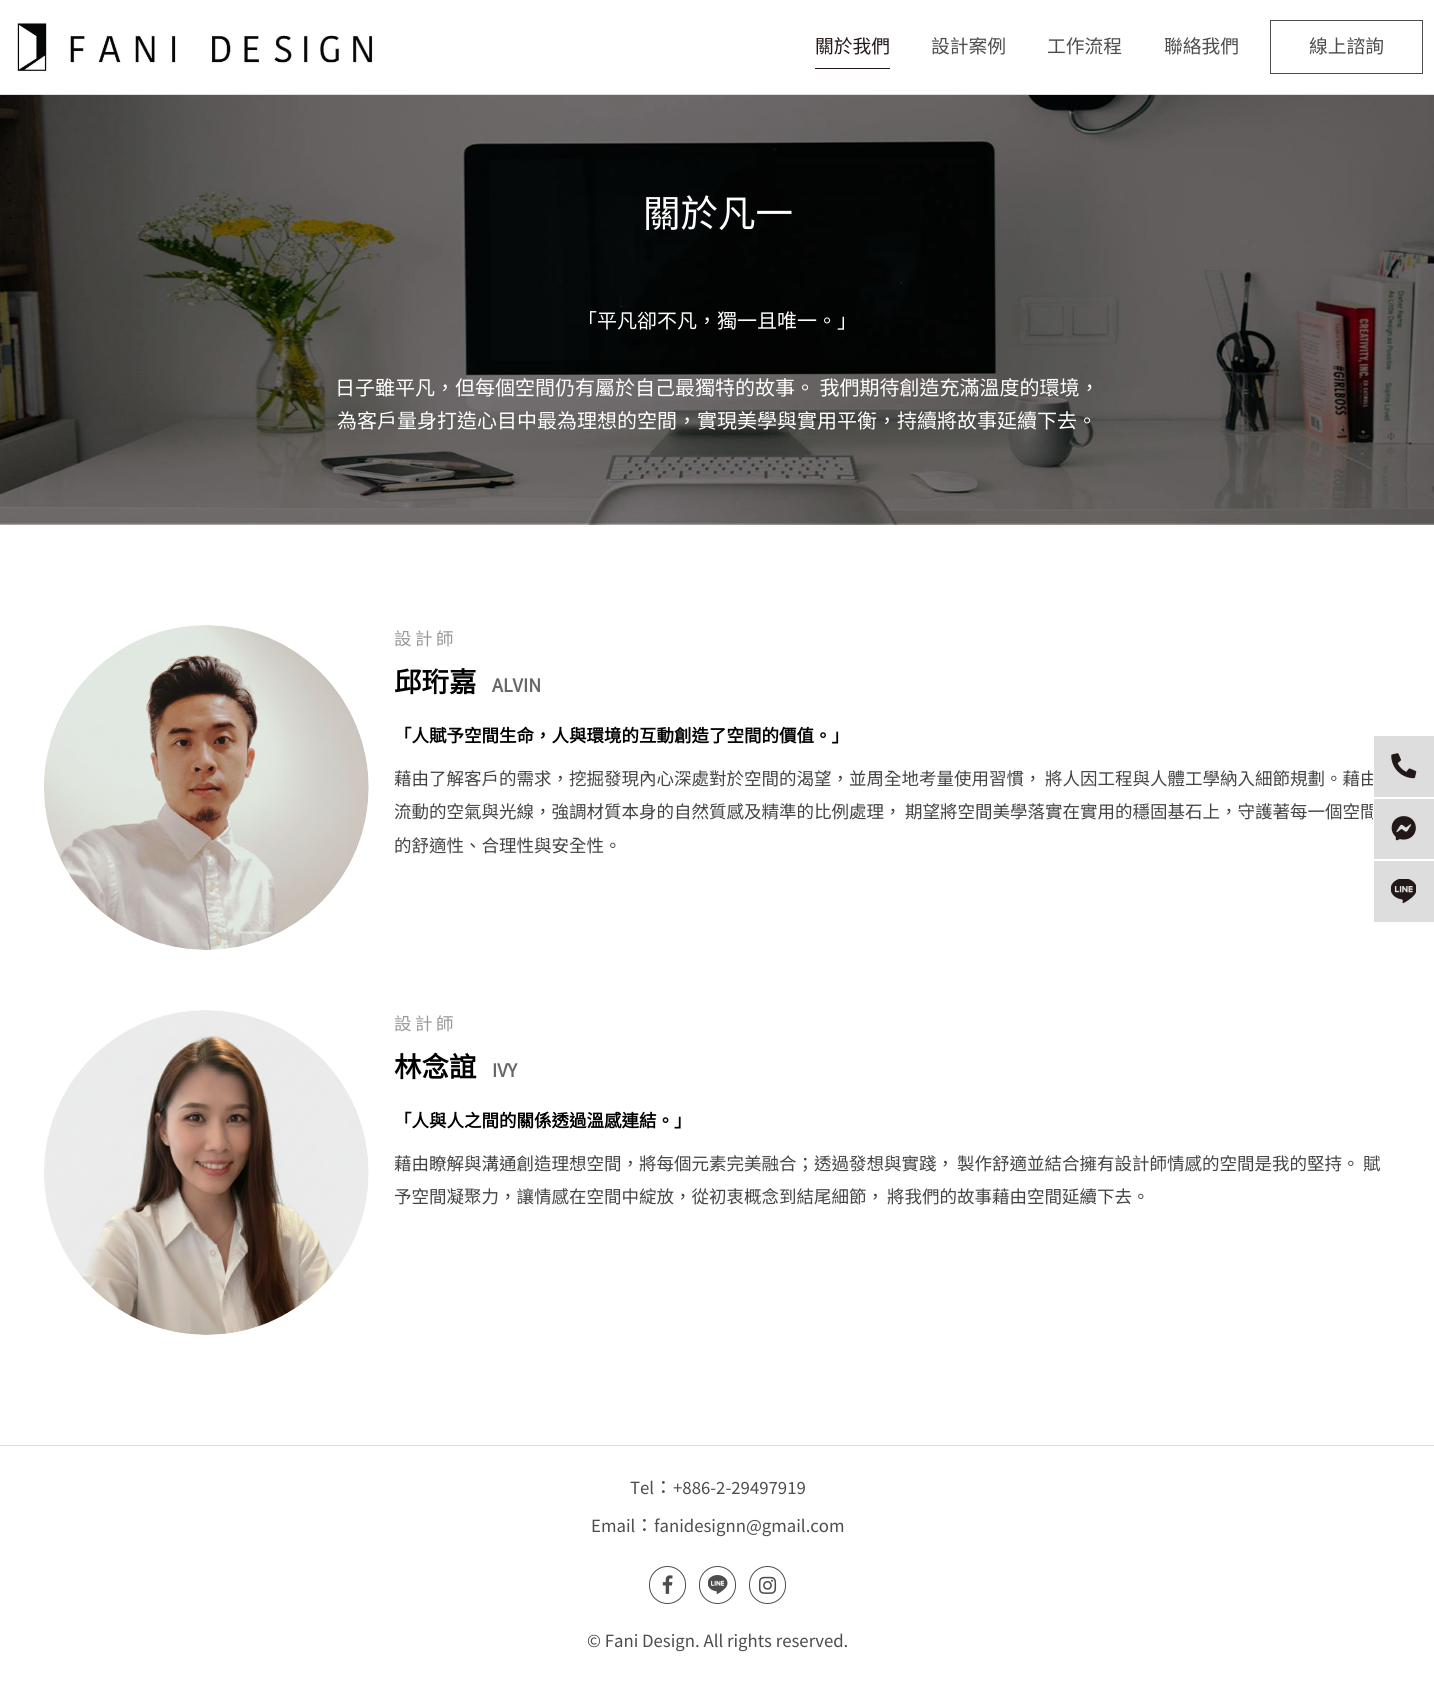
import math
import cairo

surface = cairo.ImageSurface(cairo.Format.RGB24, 1434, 1690)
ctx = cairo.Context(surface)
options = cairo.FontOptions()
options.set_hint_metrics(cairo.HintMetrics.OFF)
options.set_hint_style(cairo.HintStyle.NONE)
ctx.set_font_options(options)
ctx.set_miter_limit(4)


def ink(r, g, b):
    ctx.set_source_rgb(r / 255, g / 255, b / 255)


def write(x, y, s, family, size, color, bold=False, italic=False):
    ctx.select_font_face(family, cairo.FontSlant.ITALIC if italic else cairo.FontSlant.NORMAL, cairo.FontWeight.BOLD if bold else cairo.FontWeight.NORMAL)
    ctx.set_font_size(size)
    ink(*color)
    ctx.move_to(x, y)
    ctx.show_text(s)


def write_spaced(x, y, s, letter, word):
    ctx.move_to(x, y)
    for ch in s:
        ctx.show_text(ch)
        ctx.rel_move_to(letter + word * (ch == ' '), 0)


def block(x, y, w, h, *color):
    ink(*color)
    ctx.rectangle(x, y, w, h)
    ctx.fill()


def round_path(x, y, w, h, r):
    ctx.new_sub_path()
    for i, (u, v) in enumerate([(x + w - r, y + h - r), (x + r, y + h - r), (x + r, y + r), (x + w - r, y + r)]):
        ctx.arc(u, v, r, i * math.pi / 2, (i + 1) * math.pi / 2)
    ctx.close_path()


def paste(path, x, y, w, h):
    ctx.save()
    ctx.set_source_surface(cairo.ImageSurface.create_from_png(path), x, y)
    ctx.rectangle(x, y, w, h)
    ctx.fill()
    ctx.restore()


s1 = dict(family="Noto Sans CJK TC", size=18.75, color=(34, 24, 23))
s2 = dict(family="Noto Sans CJK TC", size=18.75, color=(77, 77, 77))
s3 = dict(family="Noto Sans CJK TC", size=37.5, color=(255, 255, 255))
s4 = dict(family="Noto Sans CJK TC", size=20, color=(255, 255, 255))
s5 = dict(family="Noto Sans CJK TC", size=27.5, color=(0, 0, 0), bold=True)
s6 = dict(family="Source Sans Pro", size=20, color=(102, 102, 102), bold=True)
s7 = dict(family="Noto Sans CJK TC", size=17.5, color=(0, 0, 0), bold=True)
s8 = dict(family="Noto Sans CJK TC", size=17.5, color=(68, 68, 68))
s9 = dict(family="Source Sans Pro", size=18.75, color=(77, 77, 77))

ink(255, 255, 255)
ctx.paint()
block(0, 94, 1434, 1, 221, 221, 221)
paste("pic1.png", 17, 22, 356, 51)
write(815, 53, "關於我們", **s1)
block(815, 68, 75, 1, 34, 24, 23)
write(931, 53, "設計案例", **s2)
write(1047, 53, "工作流程", **s2)
write(1164, 53, "聯絡我們", **s2)
ctx.rectangle(1270.5, 20.5, 152, 53)
ctx.set_line_width(1)
ctx.stroke()
write(1309, 53, "線上諮詢", **s2)
paste("pic2.png", 0, 95, 1434, 430)
write(643, 227, "關於凡一", **s3)
write(577, 328, "「平凡卻不凡，獨一且唯一。」", **s4)
write(335, 395, "日子雖平凡，但每個空間仍有屬於自己最獨特的故事。 我們期待創造充滿溫度的環境，", **s4)
write(337, 428, "為客戶量身打造心目中最為理想的空間，實現美學與實用平衡，持續將故事延續下去。", **s4)
paste("pic3.png", 44, 625, 325, 325)
ctx.set_font_size(17.5)
ink(153, 153, 153)
write_spaced(394, 645, "設計師", 3.5, 0)
write(394, 692, "邱珩嘉", **s5)
write(492, 692, "ALVIN", **s6)
write(394, 742, "「人賦予空間生命，人與環境的互動創造了空間的價值。」", **s7)
write(394, 785, "藉由了解客戶的需求，挖掘發現內心深處對於空間的渴望，並周全地考量使用習慣，", **s8)
write(1045, 785, "將人因工程與人體工學納入細節規劃。藉由", **s8)
write(394, 818, "流動的空氣與光線，強調材質本身的自然質感及精準的比例處理，", **s8)
write(905, 818, "期望將空間美學落實在實用的穩固基石上，守護著每一個空間", **s8)
write(394, 852, "的舒適性、合理性與安全性。", **s8)
paste("pic4.png", 44, 1010, 325, 325)
ink(153, 153, 153)
write_spaced(394, 1030, "設計師", 3.5, 0)
write(394, 1077, "林念誼", **s5)
write(492, 1077, "IVY", **s6)
write(394, 1127, "「人與人之間的關係透過溫感連結。」", **s7)
write(394, 1170, "藉由瞭解與溝通創造理想空間，將每個元素完美融合；透過發想與實踐，", **s8)
write(957, 1170, "製作舒適並結合擁有設計師情感的空間是我的堅持。", **s8)
write(1363, 1170, "賦", **s8)
write(394, 1203, "予空間凝聚力，讓情感在空間中綻放，從初衷概念到結尾細節，", **s8)
write(887, 1203, "將我們的故事藉由空間延續下去。", **s8)
block(0, 1445, 1434, 1, 221, 221, 221)
write(630, 1494, "Tel", **s9)
write(654, 1494, "：", **s2)
write(673, 1494, "+886-2-29497919", **s9)
write(591, 1532, "Email", **s9)
write(635, 1532, "：", **s2)
write(654, 1532, "fanidesignn@gmail.com", **s9)
round_path(649.5, 1566.5, 36, 37, 18)
ctx.stroke()
paste("pic5.png", 662, 1575, 11, 19)
round_path(699.5, 1566.5, 36, 37, 18)
ctx.stroke()
paste("pic6.png", 708, 1575, 20, 19)
round_path(749.5, 1566.5, 36, 37, 18)
ctx.stroke()
paste("pic7.png", 758, 1576, 19, 18)
write(587, 1647, "© Fani Design. All rights reserved.", **s9)
ink(221, 221, 221)
ctx.rectangle(1373.5, 735.5, 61, 62)
ctx.fill_preserve()
ink(255, 255, 255)
ctx.stroke()
paste("pic8.png", 1391, 753, 26, 26)
ink(221, 221, 221)
ctx.rectangle(1373.5, 798.5, 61, 61)
ctx.fill_preserve()
ink(255, 255, 255)
ctx.stroke()
paste("pic9.png", 1391, 816, 25, 25)
block(1374, 861, 60, 61, 221, 221, 221)
paste("pic10.png", 1391, 879, 25, 25)
surface.write_to_png("screenshot.png")
